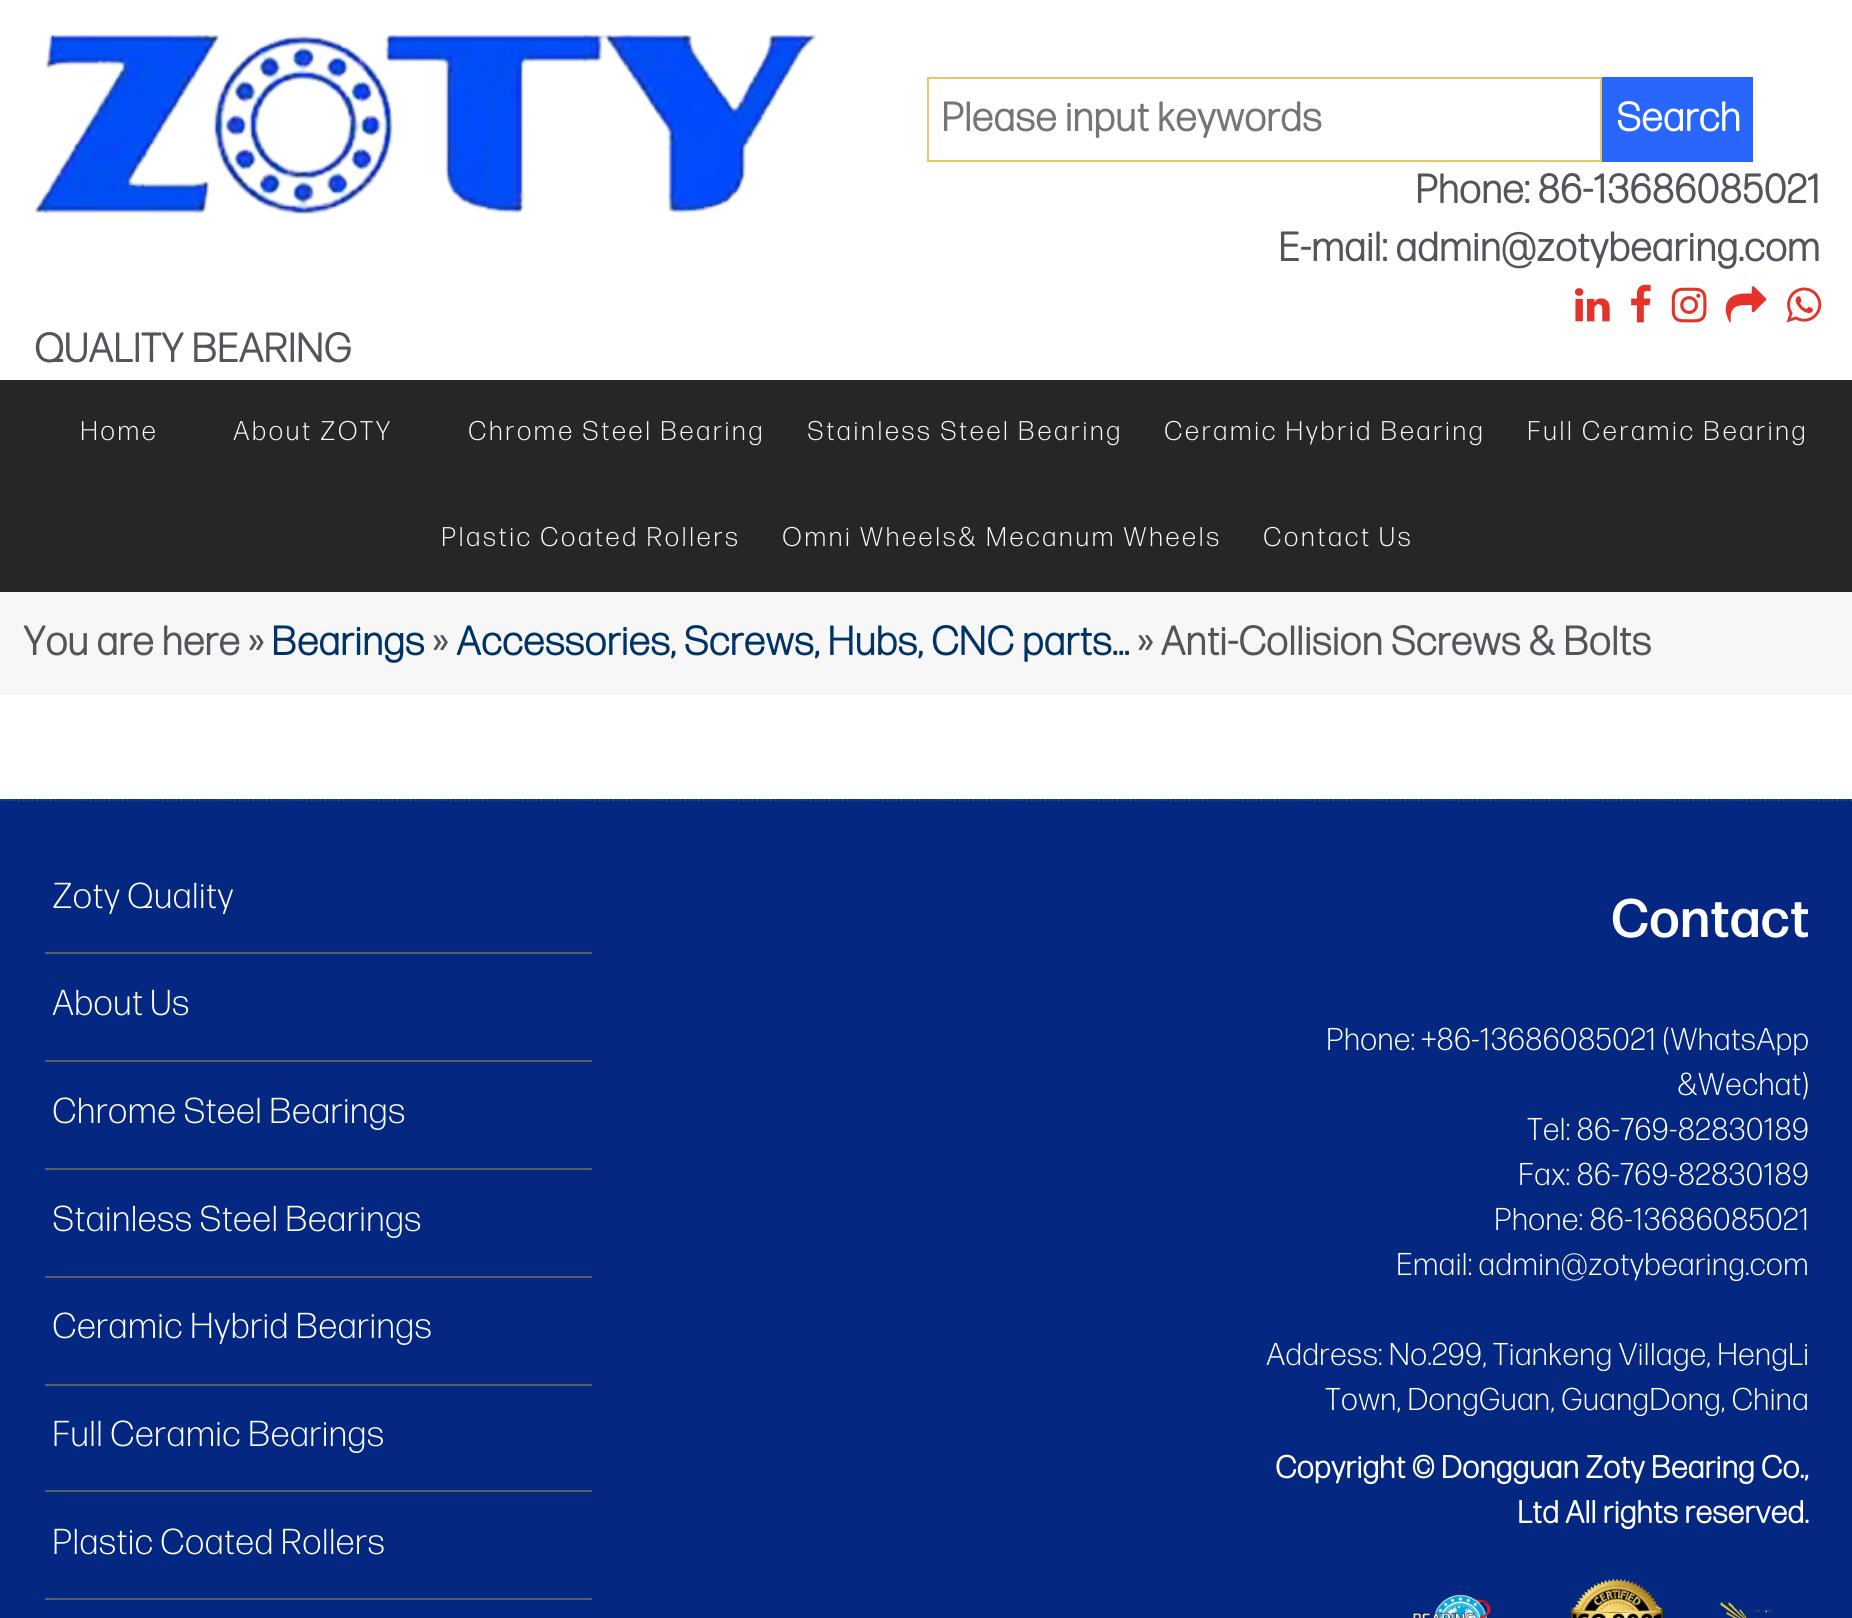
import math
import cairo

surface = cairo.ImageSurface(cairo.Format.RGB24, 1852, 1618)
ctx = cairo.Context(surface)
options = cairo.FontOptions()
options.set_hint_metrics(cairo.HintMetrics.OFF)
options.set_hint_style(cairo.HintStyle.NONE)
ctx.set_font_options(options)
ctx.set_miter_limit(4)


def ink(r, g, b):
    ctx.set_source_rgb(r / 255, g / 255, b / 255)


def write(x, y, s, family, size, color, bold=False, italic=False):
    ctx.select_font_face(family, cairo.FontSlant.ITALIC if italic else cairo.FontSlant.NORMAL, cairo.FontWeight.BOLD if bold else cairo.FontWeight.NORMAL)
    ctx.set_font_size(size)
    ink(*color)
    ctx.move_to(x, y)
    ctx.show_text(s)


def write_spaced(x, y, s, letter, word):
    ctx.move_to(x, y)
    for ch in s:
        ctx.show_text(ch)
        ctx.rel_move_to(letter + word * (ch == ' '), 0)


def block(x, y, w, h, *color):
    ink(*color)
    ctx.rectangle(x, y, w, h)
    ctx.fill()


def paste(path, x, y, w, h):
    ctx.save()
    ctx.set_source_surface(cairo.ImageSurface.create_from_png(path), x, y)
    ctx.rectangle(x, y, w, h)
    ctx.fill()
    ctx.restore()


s1 = dict(family="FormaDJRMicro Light", size=40.5, color=(117, 117, 117), bold=True)
s2 = dict(family="FormaDJRMicro Light", size=40.5, color=(255, 255, 255), bold=True)
s3 = dict(family="FormaDJRMicro Light", size=40.5, color=(83, 85, 92), bold=True)
s4 = dict(family="FormaDJRMicro Light", size=40.5, color=(0, 51, 102), bold=True)
s5 = dict(family="FormaDJRMicro Light Light", size=36, color=(255, 255, 255))
s6 = dict(family="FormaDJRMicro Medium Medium", size=54, color=(255, 255, 255))
s7 = dict(family="FormaDJRMicro Light Light", size=31.5, color=(255, 255, 255))
s8 = dict(family="FormaDJRMicro Light", size=31.5, color=(255, 255, 255), bold=True)

ink(255, 255, 255)
ctx.paint()
ctx.rectangle(928, 78, 673, 83)
ink(232, 200, 99)
ctx.stroke()
write(941, 131, "Please input keywords", **s1)
block(1602, 77, 151, 85, 41, 102, 253)
write(1616, 131, "Search", **s2)
write(1415, 203, "Phone: 86-13686085021", **s3)
write(1278, 261, "E-mail: admin@zotybearing.com", **s3)
paste("pic1.png", 1575, 288, 35, 34)
paste("pic2.png", 1631, 284, 20, 39)
paste("pic3.png", 1671, 287, 36, 36)
paste("pic4.png", 1725, 286, 42, 37)
paste("pic5.png", 1786, 287, 36, 36)
paste("pic6.png", 35, 34, 782, 180)
write(34, 362, "QUALITY BEARING", **s3)
block(0, 380, 1852, 212, 38, 38, 38)
ctx.select_font_face("FormaDJRMicro Light Light")
ctx.set_font_size(27)
ink(247, 247, 247)
write_spaced(80, 440, "Home", 2.25, 0)
write_spaced(233, 440, "About ZOTY", 2.25, 0)
write_spaced(468, 440, "Chrome Steel Bearing", 2.25, 0)
write_spaced(807, 440, "Stainless Steel Bearing", 2.25, 0)
write_spaced(1164, 440, "Ceramic Hybrid Bearing", 2.25, 0)
write_spaced(1527, 440, "Full Ceramic Bearing", 2.25, 0)
write_spaced(441, 546, "Plastic Coated Rollers", 2.25, 0)
write_spaced(782, 546, "Omni Wheels& Mecanum Wheels", 2.25, 0)
write_spaced(1263, 546, "Contact Us", 2.25, 0)
block(0, 592, 1852, 103, 247, 247, 247)
write(23, 655, "You are here »", **s3)
write(271, 655, "Bearings", **s4)
write(432, 655, "»", **s3)
write(456, 655, "Accessories, Screws, Hubs, CNC parts...", **s4)
write(1137, 655, "» Anti-Collision Screws & Bolts", **s3)
block(0, 799, 1852, 819, 4, 39, 129)
ctx.new_path()
ctx.move_to(0, 800)
ctx.line_to(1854, 800)
ink(47, 70, 129)
ctx.set_line_width(2.2)
ctx.set_dash([2.25, 2.25])
ctx.stroke()
block(0, 798, 1852, 1, 255, 255, 255)
block(45, 952, 547, 2, 88, 93, 105)
write(52, 908, "Zoty Quality", **s5)
block(45, 1060, 547, 2, 88, 93, 105)
write(52, 1015, "About Us", **s5)
block(45, 1168, 547, 2, 88, 93, 105)
write(52, 1123, "Chrome Steel Bearings", **s5)
block(45, 1276, 547, 2, 88, 93, 105)
write(52, 1231, "Stainless Steel Bearings", **s5)
block(45, 1384, 547, 2, 88, 93, 105)
write(52, 1338, "Ceramic Hybrid Bearings", **s5)
block(45, 1490, 547, 2, 88, 93, 105)
write(52, 1446, "Full Ceramic Bearings", **s5)
block(45, 1598, 547, 2, 88, 93, 105)
write(52, 1554, "Plastic Coated Rollers", **s5)
write(1611, 937, "Contact", **s6)
write(1326, 1050, "Phone: +86-13686085021 (WhatsApp", **s7)
write(1677, 1095, "&Wechat)", **s7)
write(1527, 1140, "Tel: 86-769-82830189", **s7)
write(1518, 1185, "Fax: 86-769-82830189", **s7)
write(1494, 1230, "Phone: 86-13686085021", **s7)
write(1396, 1275, "Email: admin@zotybearing.com", **s7)
write(1266, 1365, "Address: No.299, Tiankeng Village, HengLi", **s7)
write(1325, 1410, "Town, DongGuan, GuangDong, China", **s7)
write(1275, 1478, "Copyright © Dongguan Zoty Bearing Co.,", **s8)
write(1517, 1523, "Ltd All rights reserved.", **s8)
paste("pic7.png", 1413, 1594, 79, 24)
paste("pic8.png", 1570, 1578, 95, 40)
paste("pic9.png", 1720, 1602, 54, 16)
surface.write_to_png("screenshot.png")
